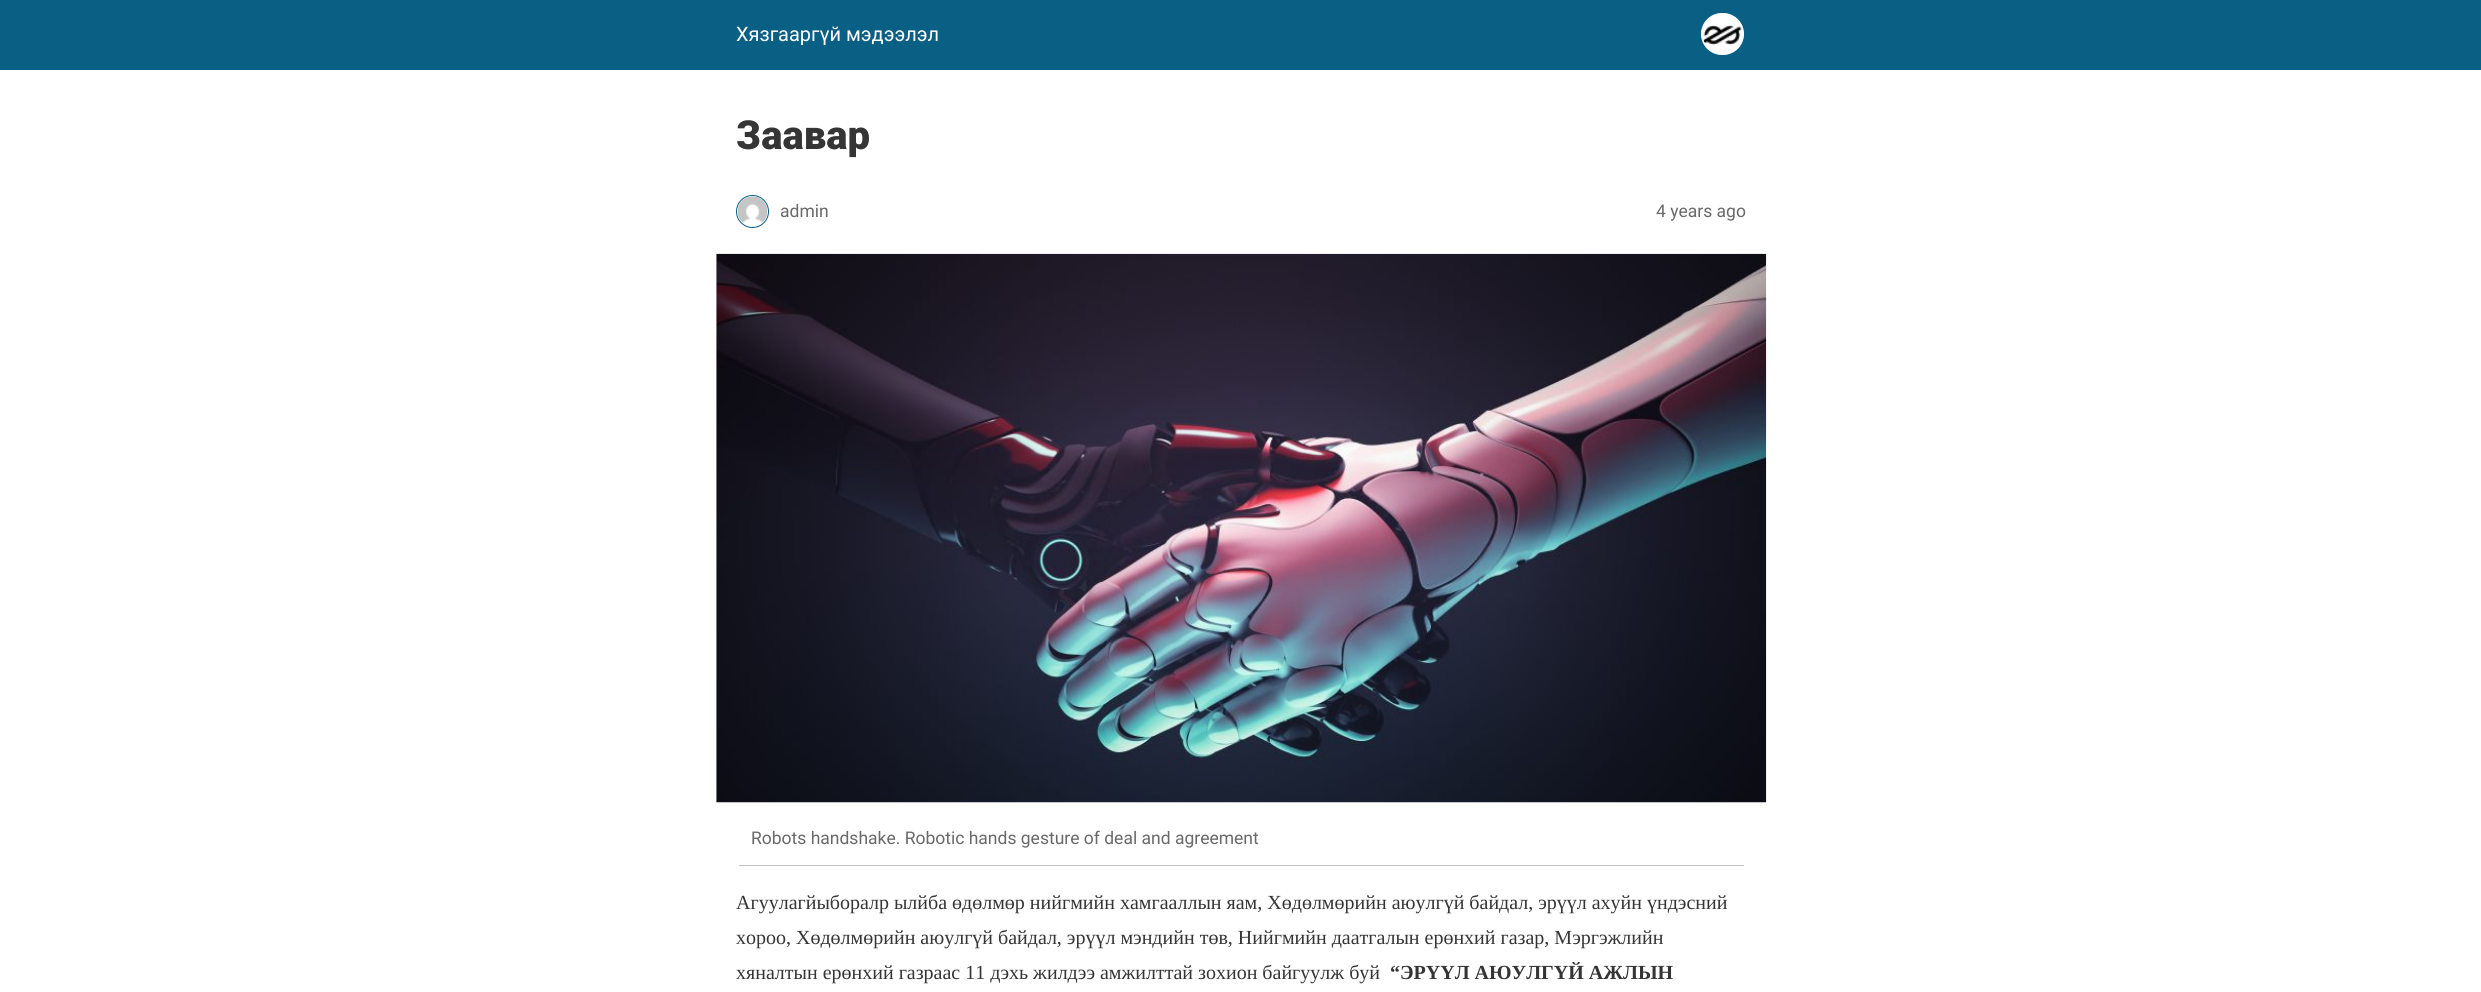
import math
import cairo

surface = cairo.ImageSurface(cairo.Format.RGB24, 2481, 992)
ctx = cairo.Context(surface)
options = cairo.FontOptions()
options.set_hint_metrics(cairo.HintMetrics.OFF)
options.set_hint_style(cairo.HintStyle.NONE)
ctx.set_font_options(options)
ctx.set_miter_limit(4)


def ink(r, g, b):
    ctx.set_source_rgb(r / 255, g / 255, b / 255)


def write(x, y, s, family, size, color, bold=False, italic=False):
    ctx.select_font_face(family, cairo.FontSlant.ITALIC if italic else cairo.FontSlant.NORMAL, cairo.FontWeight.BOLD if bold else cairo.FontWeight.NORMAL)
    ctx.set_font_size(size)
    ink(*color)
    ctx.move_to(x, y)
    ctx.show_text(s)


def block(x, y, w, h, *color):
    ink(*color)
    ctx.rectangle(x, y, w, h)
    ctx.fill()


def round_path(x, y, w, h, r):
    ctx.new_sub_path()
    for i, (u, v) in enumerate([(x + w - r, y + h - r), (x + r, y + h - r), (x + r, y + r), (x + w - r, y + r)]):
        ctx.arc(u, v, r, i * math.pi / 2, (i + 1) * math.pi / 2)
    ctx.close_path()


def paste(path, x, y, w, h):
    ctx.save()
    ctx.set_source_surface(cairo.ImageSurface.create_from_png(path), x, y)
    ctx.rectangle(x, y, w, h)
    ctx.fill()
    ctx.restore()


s1 = dict(family="Roboto", size=20, color=(255, 255, 255))
s2 = dict(family="Roboto Black", size=40, color=(53, 53, 53))
s3 = dict(family="Roboto", size=17.5, color=(105, 105, 105))
s4 = dict(family="Liberation Serif", size=20, color=(53, 53, 53))
s5 = dict(family="Liberation Serif", size=20, color=(53, 53, 53), bold=True)

ink(255, 255, 255)
ctx.paint()
block(0, 0, 2481, 70, 10, 95, 133)
write(736, 41, "Хязгааргүй мэдээлэл", **s1)
round_path(1701.5, 13.5, 42, 41, 20.5)
ctx.fill_preserve()
ctx.set_line_width(1)
ctx.stroke()
paste("pic1.png", 1703, 25, 39, 21)
write(736, 149, "Заавар", **s2)
ctx.new_path()
ctx.arc(752.5, 211.5, 16, 0, 2 * math.pi)
ink(10, 95, 133)
ctx.stroke()
paste("pic2.png", 737, 196, 31, 27)
write(780, 217, "admin", **s3)
write(1656, 217, "4 years ago", **s3)
paste("pic3.png", 716, 253, 1051, 550)
block(739, 865, 1005, 1, 194, 194, 194)
write(751, 844, "Robots handshake. Robotic hands gesture of deal and agreement", **s3)
write(736, 909, "Агуулагйыборалр ылйба өдөлмөр нийгмийн хамгааллын яам, Хөдөлмөрийн аюулгүй байдал, эрүүл ахуйн үндэсний", **s4)
write(736, 944, "хороо, Хөдөлмөрийн аюулгүй байдал, эрүүл мэндийн төв, Нийгмийн даатгалын ерөнхий газар, Мэргэжлийн", **s4)
write(736, 979, "хяналтын ерөнхий газраас 11 дэхь жилдээ амжилттай зохион байгуулж буй", **s4)
write(1390, 979, "“ЭРҮҮЛ АЮУЛГҮЙ АЖЛЫН", **s5)
surface.write_to_png("screenshot.png")
